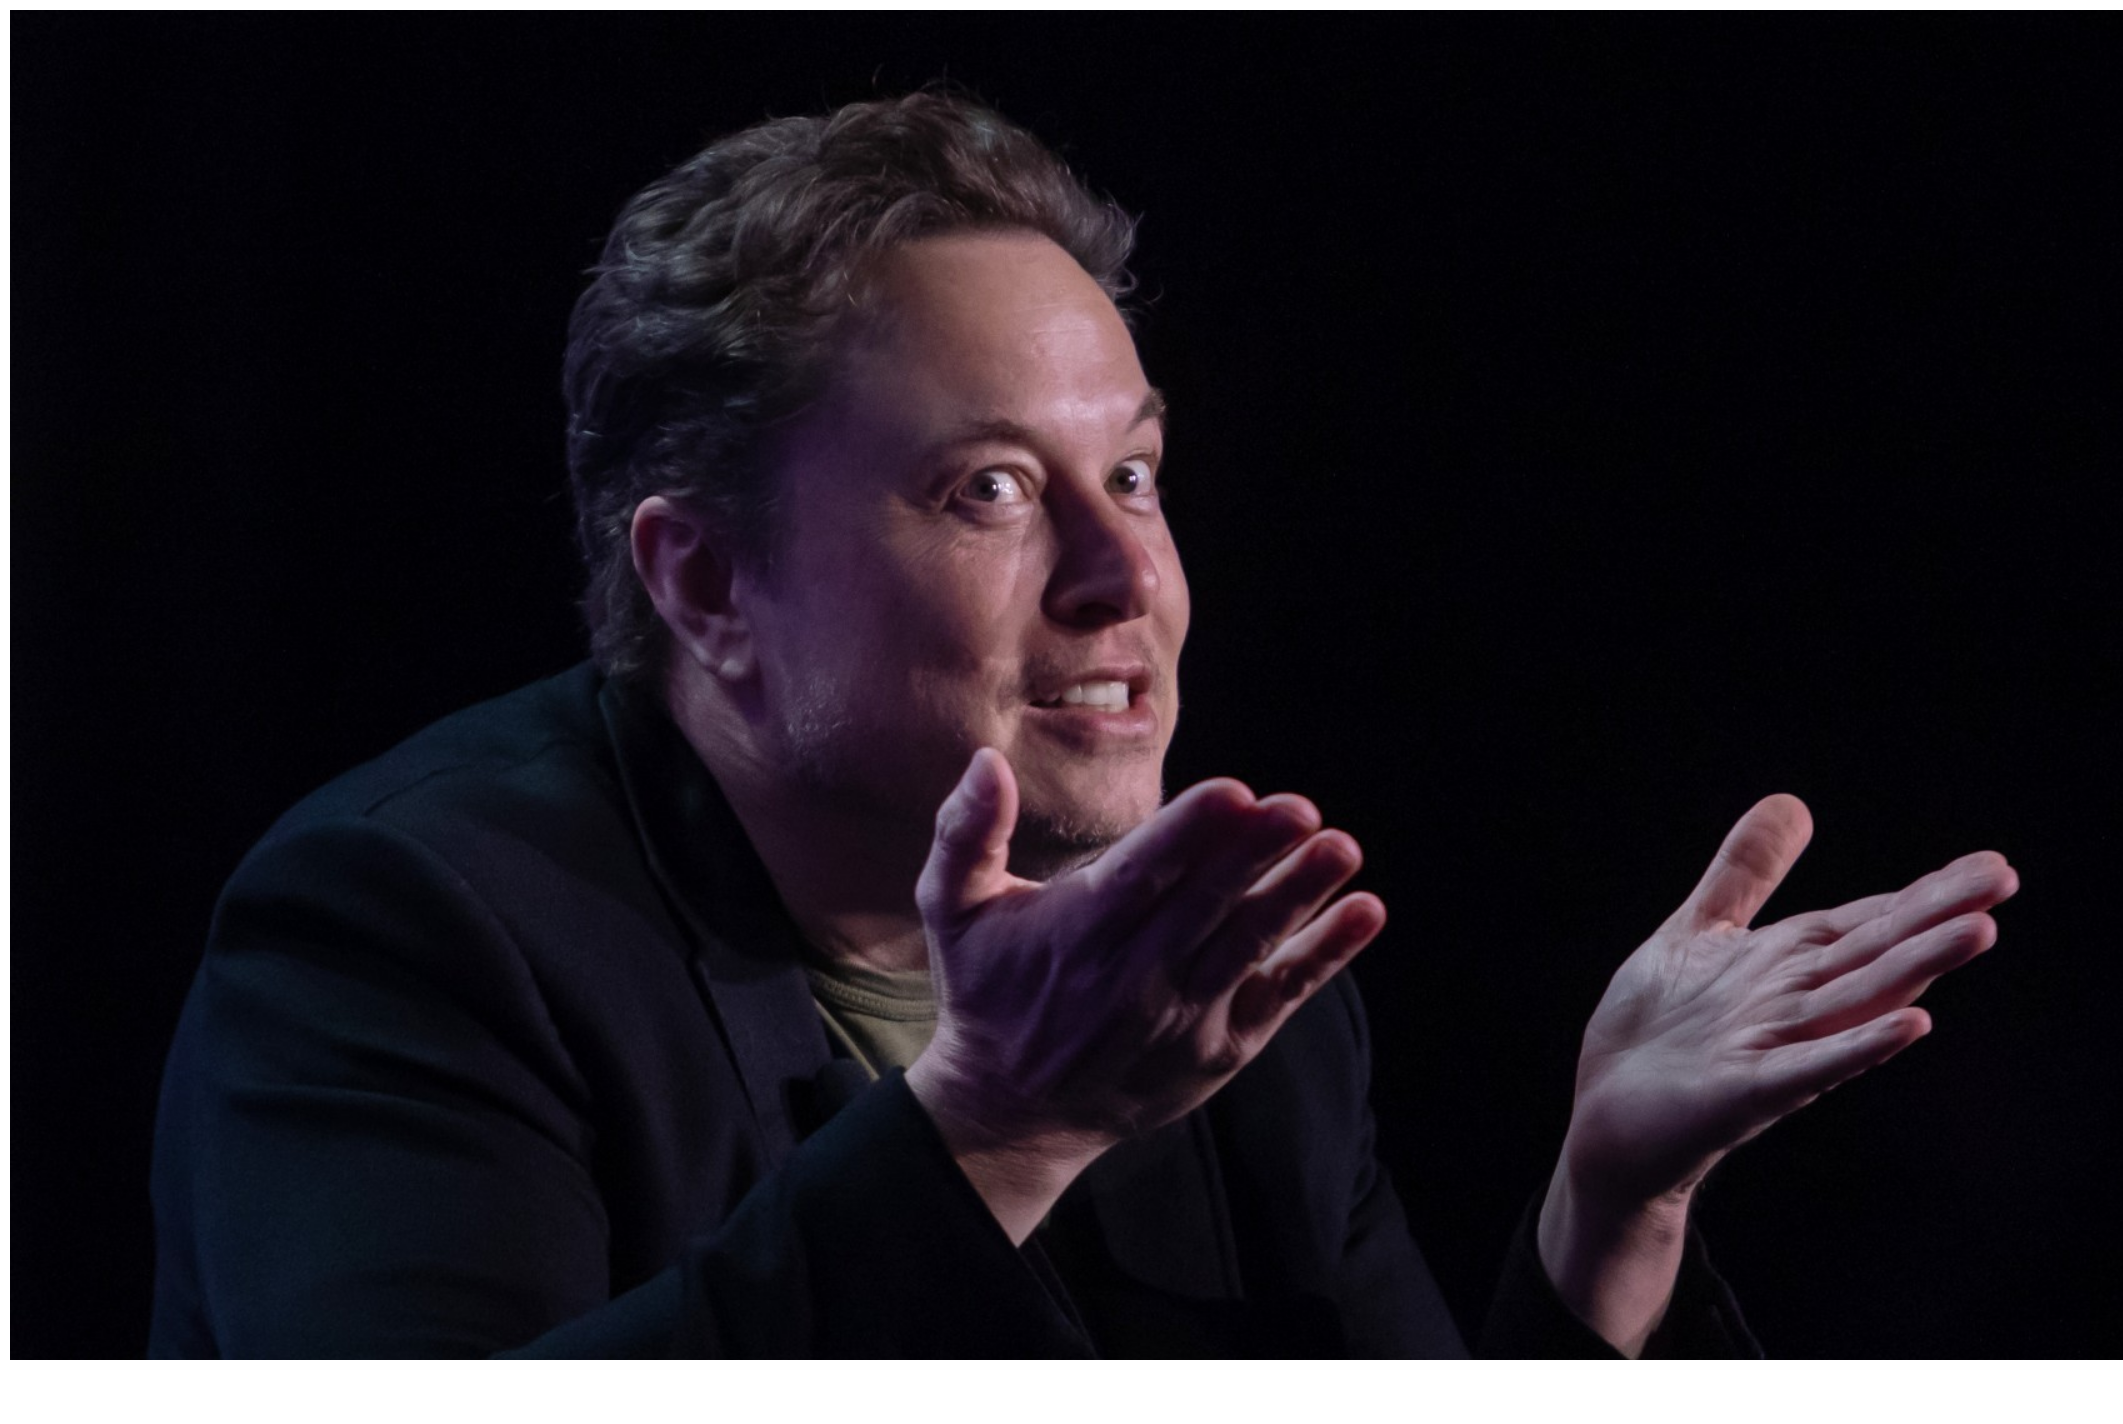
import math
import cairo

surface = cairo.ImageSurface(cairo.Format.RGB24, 2123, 1424)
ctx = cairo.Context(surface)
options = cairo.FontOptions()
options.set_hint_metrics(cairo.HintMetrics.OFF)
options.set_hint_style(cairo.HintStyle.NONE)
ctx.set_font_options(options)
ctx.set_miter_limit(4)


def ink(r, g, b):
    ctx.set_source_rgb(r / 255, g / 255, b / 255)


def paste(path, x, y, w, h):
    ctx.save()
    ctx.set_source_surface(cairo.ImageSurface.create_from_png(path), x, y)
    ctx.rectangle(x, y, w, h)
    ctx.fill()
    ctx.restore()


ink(255, 255, 255)
ctx.paint()
paste("pic1.png", 10, 10, 2113, 1350)
surface.write_to_png("screenshot.png")
